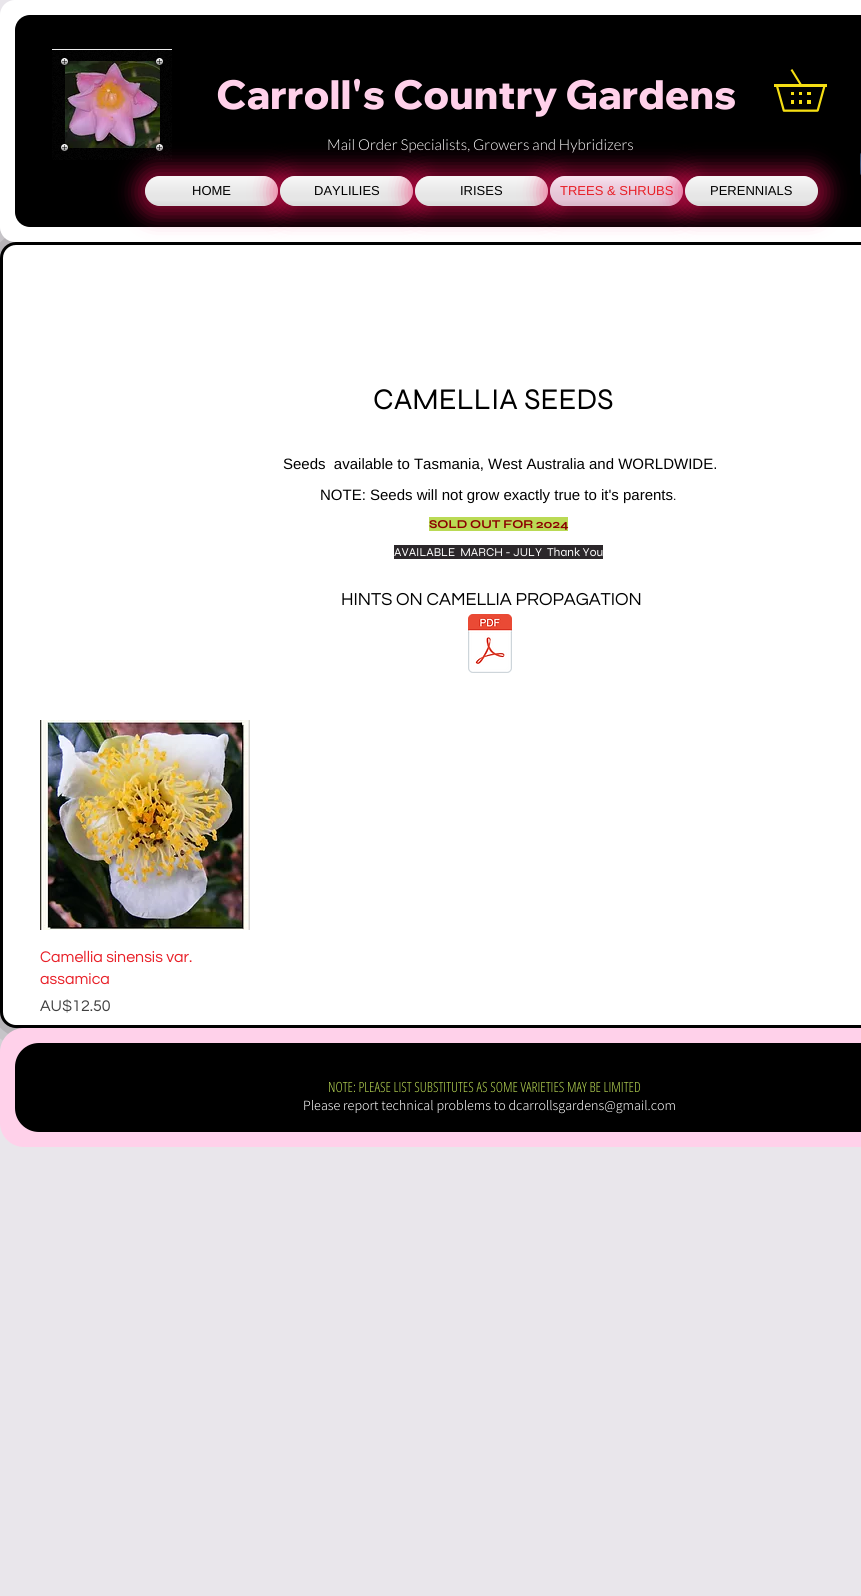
import math
import cairo

surface = cairo.ImageSurface(cairo.Format.RGB24, 861, 1596)
ctx = cairo.Context(surface)
options = cairo.FontOptions()
options.set_hint_metrics(cairo.HintMetrics.OFF)
options.set_hint_style(cairo.HintStyle.NONE)
ctx.set_font_options(options)
ctx.set_miter_limit(4)


def ink(r, g, b):
    ctx.set_source_rgb(r / 255, g / 255, b / 255)


def write(x, y, s, family, size, color, bold=False, italic=False):
    ctx.select_font_face(family, cairo.FontSlant.ITALIC if italic else cairo.FontSlant.NORMAL, cairo.FontWeight.BOLD if bold else cairo.FontWeight.NORMAL)
    ctx.set_font_size(size)
    ink(*color)
    ctx.move_to(x, y)
    ctx.show_text(s)


def block(x, y, w, h, *color):
    ink(*color)
    ctx.rectangle(x, y, w, h)
    ctx.fill()


def round_path(x, y, w, h, r):
    ctx.new_sub_path()
    for i, (u, v) in enumerate([(x + w - r, y + h - r), (x + r, y + h - r), (x + r, y + r), (x + w - r, y + r)]):
        ctx.arc(u, v, r, i * math.pi / 2, (i + 1) * math.pi / 2)
    ctx.close_path()


def blur_box(x, y, w, h, r, blur, alpha):
    ctx.push_group_with_content(cairo.Content.ALPHA)
    ctx.set_operator(cairo.Operator.SOURCE)
    for i in range(15, -16, -2):
        e = blur * i / 6
        if min(w, h) + 2 * e > 0:
            ctx.set_source_rgba(0, 0, 0, alpha * math.erfc((i - 1) / 8.5) / 2)
            round_path(x - e, y - e, w + 2 * e, h + 2 * e, max(0, min(r + e + blur * .6, min(w, h) / 2 + e)))
            ctx.fill()
    ctx.mask(ctx.pop_group())


def paste(path, x, y, w, h):
    ctx.save()
    ctx.set_source_surface(cairo.ImageSurface.create_from_png(path), x, y)
    ctx.rectangle(x, y, w, h)
    ctx.fill()
    ctx.restore()


s1 = dict(family="Wix Madefor Display ExtraBold", size=40, color=(255, 209, 234))
s2 = dict(family="Lato Light", size=15, color=(255, 255, 255))
s3 = dict(family="Liberation Sans", size=13, color=(0, 0, 0))
s4 = dict(family="Liberation Sans", size=13, color=(232, 31, 39))
s5 = dict(family="Syne", size=30, color=(0, 0, 0))
s6 = dict(family="Liberation Sans", size=15, color=(0, 0, 0))
s7 = dict(family="Liberation Sans", size=12, color=(0, 0, 0))
s8 = dict(family="Syne", size=12, color=(139, 0, 0), bold=True)
s9 = dict(family="Syne", size=12, color=(255, 255, 255))
s10 = dict(family="Questrial", size=18, color=(0, 0, 0))
s11 = dict(family="Questrial", size=16, color=(232, 31, 39))
s12 = dict(family="Questrial", size=16, color=(64, 64, 64))
s13 = dict(family="Open Sans Condensed Light", size=14, color=(186, 218, 85))
s14 = dict(family="Assistant Light", size=14, color=(255, 255, 255))

ink(233, 230, 235)
ctx.paint()
ink(0, 0, 0)
blur_box(0, 242, 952, 786, 16, 25, 0.6)
ink(255, 255, 255)
round_path(0, 0, 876, 242, 15)
ctx.fill()
ink(0, 0, 0)
round_path(15, 15, 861, 212, 15)
ctx.fill()
paste("pic1.png", 52, 49, 120, 111)
ctx.set_source_rgba(1, 1, 1, 0.92)
ctx.rectangle(52, 49, 120, 1)
ctx.fill()
paste("pic4.png", 65, 61, 95, 87)
paste("pic2.png", 61, 58, 9, 9)
paste("pic3.png", 154, 58, 9, 10)
paste("pic5.png", 61, 142, 9, 9)
paste("pic6.png", 153, 141, 10, 10)
write(216, 109, "Carroll's Country Gardens", **s1)
paste("pic7.png", 774, 69, 53, 43)
write(327, 150, "Mail Order Specialists, Growers and Hybridizers", **s2)
round_path(860.5, 152.5, 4, 23, 2.5)
ink(45, 69, 101)
ctx.set_line_width(1)
ctx.stroke()
ctx.new_path()
ctx.move_to(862, 174)
ctx.curve_to(861, 173.5, 861, 154.5, 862, 154)
ink(111, 131, 173)
ctx.stroke()
ink(255, 255, 255)
round_path(1.5, 243.5, 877, 783, 14.5)
ctx.fill_preserve()
ink(0, 0, 0)
ctx.set_line_width(3)
ctx.stroke()
ink(241, 11, 85)
blur_box(136, 167, 153, 50, 25, 10, 0.5)
ink(255, 255, 255)
round_path(145, 176, 133, 30, 15)
ctx.fill()
paste("pic8.png", 145, 176, 133, 30)
paste("pic9.png", 145, 176, 133, 30)
write(192, 195, "HOME", **s3)
ink(241, 11, 85)
blur_box(271, 167, 153, 50, 25, 10, 0.5)
ink(255, 255, 255)
round_path(280, 176, 133, 30, 15)
ctx.fill()
paste("pic10.png", 280, 176, 133, 30)
paste("pic11.png", 280, 176, 133, 30)
write(314, 195, "DAYLILIES", **s3)
ink(241, 11, 85)
blur_box(406, 167, 153, 50, 25, 10, 0.5)
ink(255, 255, 255)
round_path(415, 176, 133, 30, 15)
ctx.fill()
paste("pic10.png", 415, 176, 133, 30)
paste("pic11.png", 415, 176, 133, 30)
write(460, 195, "IRISES", **s3)
ink(241, 11, 85)
blur_box(541, 167, 153, 50, 25, 10, 0.5)
ink(255, 209, 234)
round_path(550, 176, 133, 30, 15)
ctx.fill()
paste("pic12.png", 550, 176, 133, 30)
paste("pic13.png", 550, 176, 133, 30)
write(560, 195, "TREES & SHRUBS", **s4)
ink(241, 11, 85)
blur_box(676, 167, 153, 50, 25, 10, 0.5)
ink(255, 255, 255)
round_path(685, 176, 133, 30, 15)
ctx.fill()
paste("pic10.png", 685, 176, 133, 30)
paste("pic11.png", 685, 176, 133, 30)
write(710, 195, "PERENNIALS", **s3)
write(373, 409, "CAMELLIA SEEDS", **s5)
write(283, 469, "Seeds  available to Tasmania, West Australia and WORLDWIDE.", **s6)
write(320, 500, "NOTE: Seeds will not grow exactly true to it's parents", **s6)
write(673, 500, ".", **s7)
block(429, 517, 139, 14, 186, 218, 85)
write(429, 528, "SOLD OUT FOR 2024", **s8)
block(394, 545, 209, 14, 43, 39, 42)
write(394, 556, "AVAILABLE  MARCH - JULY  Thank You", **s9)
write(341, 605, "HINTS ON CAMELLIA PROPAGATION", **s10)
paste("pic14.png", 468, 614, 44, 59)
paste("pic15.png", 40, 720, 210, 210)
write(40, 962, "Camellia sinensis var.", **s11)
write(40, 984, "assamica", **s11)
write(40, 1011, "AU$12.50", **s12)
ink(255, 209, 234)
round_path(0, 1028, 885, 119, 24)
ctx.fill()
ink(0, 0, 0)
round_path(15, 1043, 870, 89, 24)
ctx.fill()
write(328, 1092, "NOTE: PLEASE LIST SUBSTITUTES AS SOME VARIETIES MAY BE LIMITED", **s13)
write(303, 1110, "Please report technical problems to dcarrollsgardens@gmail.com", **s14)
surface.write_to_png("screenshot.png")
